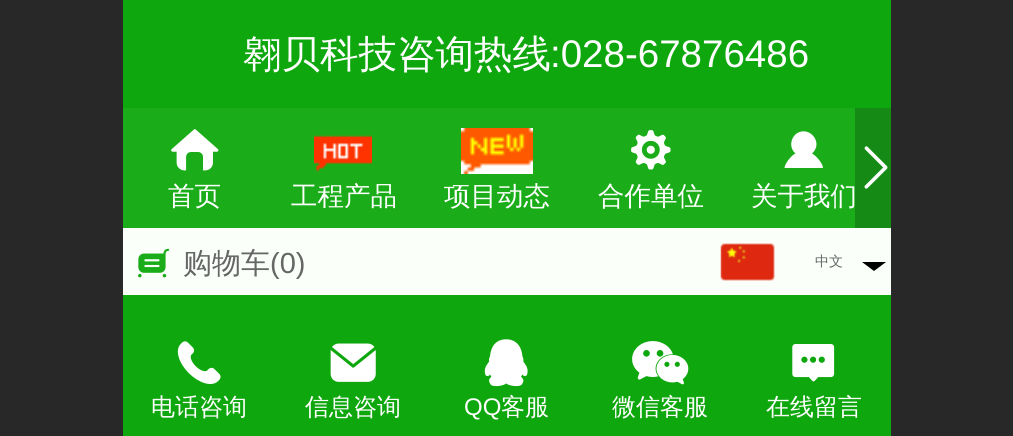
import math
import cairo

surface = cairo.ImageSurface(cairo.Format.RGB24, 1013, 436)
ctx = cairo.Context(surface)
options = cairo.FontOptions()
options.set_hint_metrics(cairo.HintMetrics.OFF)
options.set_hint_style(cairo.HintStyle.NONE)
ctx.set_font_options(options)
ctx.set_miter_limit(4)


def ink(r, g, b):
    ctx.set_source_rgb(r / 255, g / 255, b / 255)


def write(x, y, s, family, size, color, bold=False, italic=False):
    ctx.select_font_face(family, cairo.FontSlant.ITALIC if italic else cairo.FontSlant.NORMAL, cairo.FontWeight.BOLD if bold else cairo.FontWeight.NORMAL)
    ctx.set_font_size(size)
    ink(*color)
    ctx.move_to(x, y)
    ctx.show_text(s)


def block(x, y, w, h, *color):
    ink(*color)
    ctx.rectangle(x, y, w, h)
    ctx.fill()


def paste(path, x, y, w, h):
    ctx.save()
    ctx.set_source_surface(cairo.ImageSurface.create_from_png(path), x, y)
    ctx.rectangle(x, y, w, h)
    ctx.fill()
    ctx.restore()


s1 = dict(family="WenQuanYi Zen Hei Medium", size=38.5, color=(255, 255, 255))
s2 = dict(family="Liberation Sans", size=38.5, color=(255, 255, 255))
s3 = dict(family="WenQuanYi Zen Hei Medium", size=26.5, color=(255, 255, 255))
s4 = dict(family="WenQuanYi Zen Hei Medium", size=29, color=(102, 102, 102))
s5 = dict(family="Liberation Sans", size=29, color=(102, 102, 102))
s6 = dict(family="WenQuanYi Zen Hei Medium", size=14, color=(102, 102, 102))
s7 = dict(family="WenQuanYi Zen Hei Medium", size=24, color=(255, 255, 255))
s8 = dict(family="Liberation Sans", size=24, color=(255, 255, 255))

ink(250, 255, 250)
ctx.paint()
block(0, 0, 123, 436, 40, 40, 40)
block(123, 0, 768, 108, 15, 167, 14)
write(243, 67, "翱贝科技咨询热线", **s1)
write(550, 67, ":028-67876486", **s2)
block(123, 108, 732, 120, 26, 173, 25)
paste("pic1.png", 171, 129, 48, 42)
write(168, 205, "首页", **s3)
paste("pic2.png", 314, 135, 58, 37)
write(291, 205, "工程产品", **s3)
paste("pic3.png", 461, 128, 72, 46)
write(444, 205, "项目动态", **s3)
paste("pic4.png", 631, 130, 40, 40)
write(598, 205, "合作单位", **s3)
ctx.new_path()
ctx.move_to(823, 168)
ctx.curve_to(823, 163.5, 816, 155.5, 812, 153.5)
ctx.curve_to(824, 143, 809.5, 125, 796.5, 133.5)
ctx.curve_to(794, 135.5, 792, 138.5, 791.5, 141.5)
ctx.curve_to(790.5, 146, 792, 150.5, 795.5, 153.5)
ctx.curve_to(791.5, 155, 784.5, 164, 784.5, 168)
ctx.close_path()
ctx.fill()
write(751, 205, "关于我们", **s3)
block(855, 108, 36, 120, 21, 138, 20)
paste("pic5.png", 864, 146, 24, 43)
paste("pic6.png", 138, 248, 32, 30)
write(183, 273, "购物车", **s4)
write(270, 273, "(0)", **s5)
paste("pic7.png", 720, 243, 55, 38)
write(815, 266, "中文", **s6)
ink(0, 0, 0)
ctx.new_path()
ctx.move_to(862, 262)
ctx.line_to(886, 262)
ctx.line_to(874, 271)
ctx.close_path()
ctx.fill()
block(123, 295, 768, 141, 15, 167, 14)
paste("pic8.png", 177, 341, 44, 43)
write(151, 415, "电话咨询", **s7)
paste("pic9.png", 330, 343, 46, 39)
write(305, 415, "信息咨询", **s7)
paste("pic10.png", 484, 339, 44, 48)
write(464, 415, "QQ", **s8)
write(501, 415, "客服", **s7)
paste("pic11.png", 632, 341, 57, 44)
write(612, 415, "微信客服", **s7)
paste("pic12.png", 792, 344, 43, 38)
write(766, 415, "在线留言", **s7)
block(891, 0, 122, 436, 40, 40, 40)
surface.write_to_png("screenshot.png")
